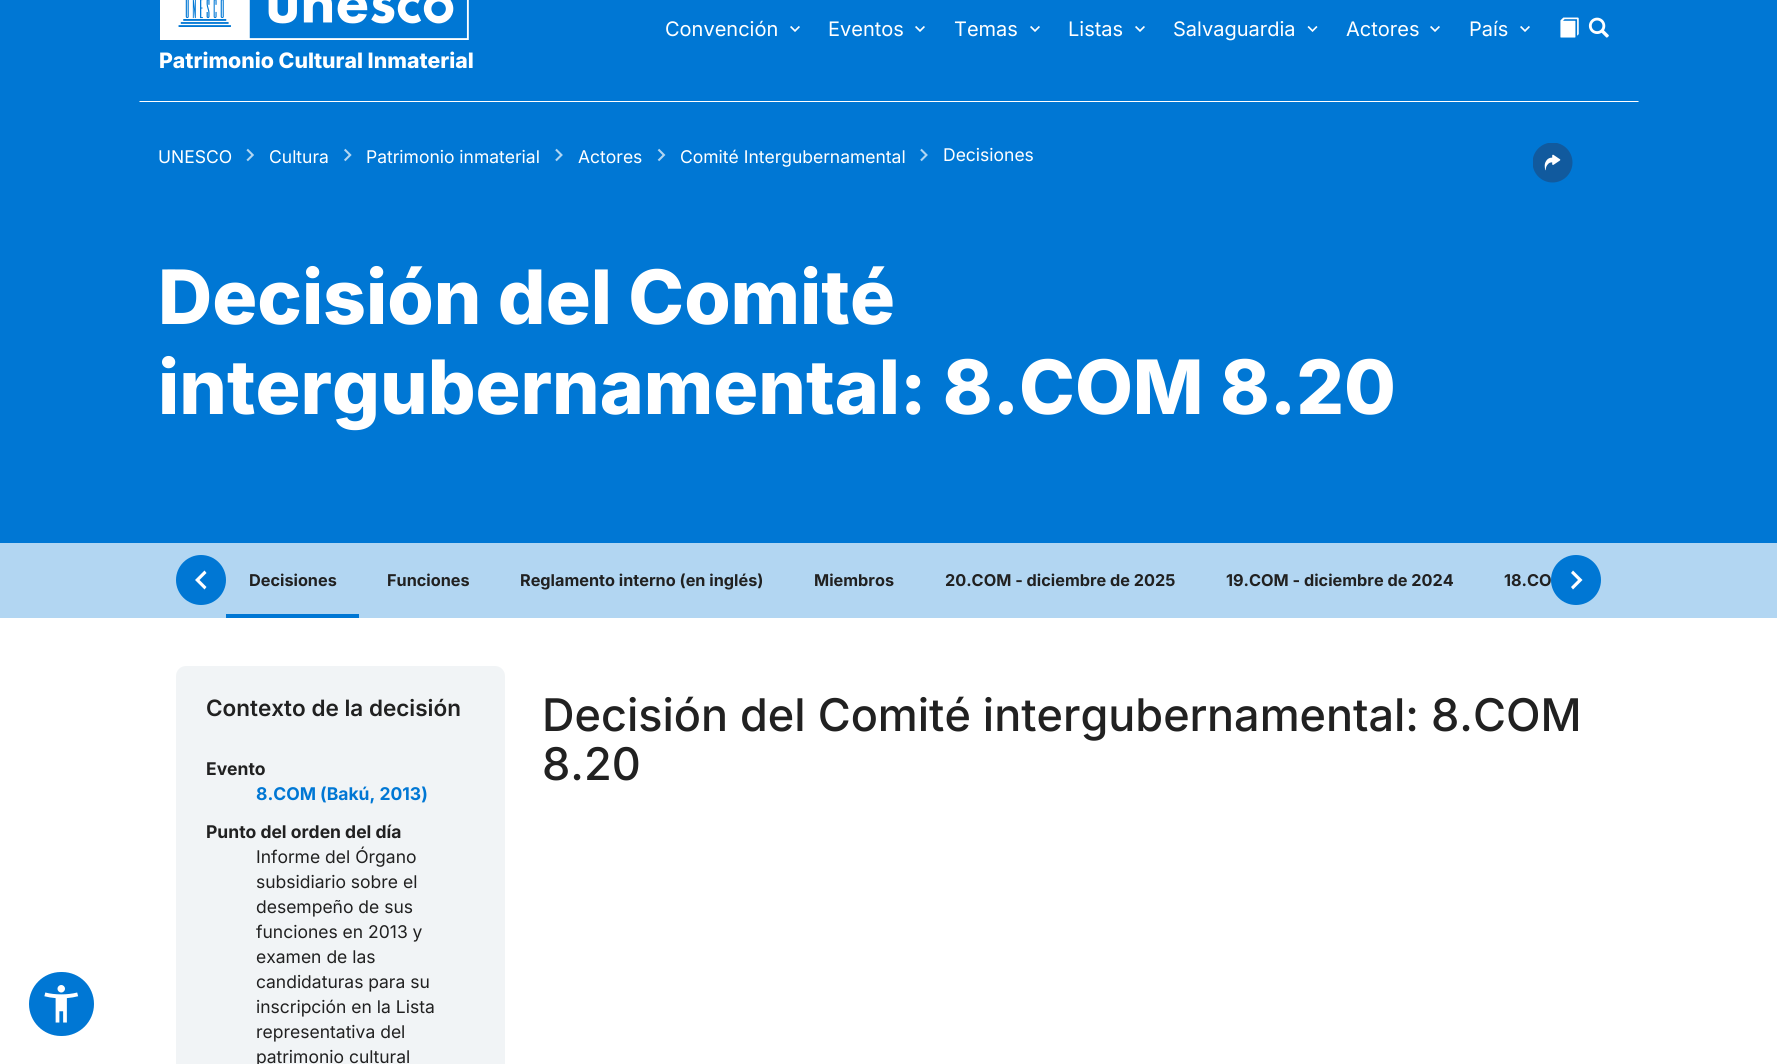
import math
import cairo

surface = cairo.ImageSurface(cairo.Format.RGB24, 1777, 1064)
ctx = cairo.Context(surface)
options = cairo.FontOptions()
options.set_hint_metrics(cairo.HintMetrics.OFF)
options.set_hint_style(cairo.HintStyle.NONE)
ctx.set_font_options(options)
ctx.set_miter_limit(4)


def ink(r, g, b):
    ctx.set_source_rgb(r / 255, g / 255, b / 255)


def write(x, y, s, family, size, color, bold=False, italic=False):
    ctx.select_font_face(family, cairo.FontSlant.ITALIC if italic else cairo.FontSlant.NORMAL, cairo.FontWeight.BOLD if bold else cairo.FontWeight.NORMAL)
    ctx.set_font_size(size)
    ink(*color)
    ctx.move_to(x, y)
    ctx.show_text(s)


def block(x, y, w, h, *color):
    ink(*color)
    ctx.rectangle(x, y, w, h)
    ctx.fill()


def round_path(x, y, w, h, r):
    ctx.new_sub_path()
    for i, (u, v) in enumerate([(x + w - r, y + h - r), (x + r, y + h - r), (x + r, y + r), (x + w - r, y + r)]):
        ctx.arc(u, v, r, i * math.pi / 2, (i + 1) * math.pi / 2)
    ctx.close_path()


def paste(path, x, y, w, h):
    ctx.save()
    ctx.set_source_surface(cairo.ImageSurface.create_from_png(path), x, y)
    ctx.rectangle(x, y, w, h)
    ctx.fill()
    ctx.restore()


s1 = dict(family="Inter", size=20, color=(255, 255, 255))
s2 = dict(family="Inter ExtraBold", size=21.25, color=(255, 255, 255))
s3 = dict(family="Inter", size=17.5, color=(255, 255, 255))
s4 = dict(family="Inter ExtraBold", size=75, color=(255, 255, 255))
s5 = dict(family="Inter", size=16.25, color=(33, 33, 33), bold=True)
s6 = dict(family="Inter SemiBold", size=22.5, color=(33, 33, 33))
s7 = dict(family="Inter", size=17.5, color=(33, 33, 33), bold=True)
s8 = dict(family="Inter", size=17.5, color=(0, 119, 212), bold=True)
s9 = dict(family="Inter", size=17.5, color=(33, 33, 33))
s10 = dict(family="Inter Medium", size=45, color=(33, 33, 33))

ink(255, 255, 255)
ctx.paint()
block(0, 0, 1777, 543, 0, 119, 212)
ink(255, 255, 255)
ctx.new_path()
ctx.move_to(1639, 102)
ctx.line_to(139, 102)
ctx.line_to(140, 101)
ctx.line_to(1638, 101)
ctx.close_path()
ctx.fill()
write(665, 36, "Convención", **s1)
paste("pic1.png", 790, 26, 10, 6)
write(828, 36, "Eventos", **s1)
paste("pic1.png", 915, 26, 10, 6)
write(954, 36, "Temas", **s1)
paste("pic1.png", 1030, 26, 10, 6)
write(1068, 36, "Listas", **s1)
paste("pic1.png", 1135, 26, 10, 6)
write(1173, 36, "Salvaguardia", **s1)
paste("pic2.png", 1307, 26, 11, 6)
write(1346, 36, "Actores", **s1)
paste("pic1.png", 1430, 26, 10, 6)
write(1469, 36, "País", **s1)
paste("pic1.png", 1520, 26, 10, 6)
paste("pic3.png", 1560, 17, 19, 21)
paste("pic4.png", 1588, 17, 21, 21)
paste("pic5.png", 160, 0, 309, 40)
write(159, 68, "Patrimonio Cultural Inmaterial", **s2)
write(158, 163, "UNESCO", **s3)
paste("pic6.png", 246, 148, 8, 14)
write(269, 163, "Cultura", **s3)
paste("pic7.png", 344, 148, 8, 14)
write(366, 163, "Patrimonio inmaterial", **s3)
paste("pic8.png", 555, 148, 8, 14)
write(578, 163, "Actores", **s3)
paste("pic9.png", 657, 148, 9, 14)
write(680, 163, "Comité Intergubernamental", **s3)
paste("pic8.png", 920, 148, 8, 14)
write(943, 161, "Decisiones", **s3)
paste("pic10.png", 1533, 143, 40, 40)
write(158, 324, "Decisión del Comité", **s4)
write(158, 414, "intergubernamental: 8.COM 8.20", **s4)
ink(0, 119, 212)
round_path(27, 970, 69, 68, 34)
ctx.fill_preserve()
ink(255, 255, 255)
ctx.set_line_width(4)
ctx.stroke()
paste("pic11.png", 44, 985, 35, 38)
block(0, 543, 1777, 75, 178, 214, 242)
ink(0, 119, 212)
ctx.arc(201, 580, 25, 0, 2 * math.pi)
ctx.fill()
ink(255, 255, 255)
ctx.new_path()
ctx.move_to(206.5, 573)
ctx.line_to(204.5, 570.5)
ctx.line_to(195, 580)
ctx.line_to(204.5, 589.5)
ctx.line_to(206.5, 587)
ctx.line_to(199.5, 580)
ctx.close_path()
ctx.fill()
block(226, 614, 133, 4, 0, 119, 212)
write(249, 586, "Decisiones", **s5)
write(387, 586, "Funciones", **s5)
write(520, 586, "Reglamento interno (en inglés)", **s5)
write(814, 586, "Miembros", **s5)
write(945, 586, "20.COM - diciembre de 2025", **s5)
write(1226, 586, "19.COM - diciembre de 2024", **s5)
write(1504, 586, "18.CO", **s5)
ink(0, 119, 212)
ctx.new_path()
ctx.arc(1576, 580, 25, 0, 2 * math.pi)
ctx.fill()
ink(255, 255, 255)
ctx.new_path()
ctx.move_to(1573, 570.5)
ctx.line_to(1571, 573)
ctx.line_to(1578, 580)
ctx.line_to(1571, 587)
ctx.line_to(1573, 589.5)
ctx.line_to(1582.5, 580)
ctx.close_path()
ctx.fill()
ink(241, 244, 246)
round_path(176, 666, 329, 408, 10)
ctx.fill()
write(206, 716, "Contexto de la decisión", **s6)
write(206, 775, "Evento", **s7)
write(256, 800, "8.COM (Bakú, 2013)", **s8)
write(206, 838, "Punto del orden del día", **s7)
write(256, 863, "Informe del Órgano", **s9)
write(256, 888, "subsidiario sobre el", **s9)
write(256, 913, "desempeño de sus", **s9)
write(256, 938, "funciones en 2013 y", **s9)
write(256, 963, "examen de las", **s9)
write(256, 988, "candidaturas para su", **s9)
write(256, 1013, "inscripción en la Lista", **s9)
write(256, 1038, "representativa del", **s9)
write(256, 1063, "patrimonio cultural", **s9)
write(542, 731, "Decisión del Comité intergubernamental: 8.COM", **s10)
write(542, 780, "8.20", **s10)
surface.write_to_png("screenshot.png")
